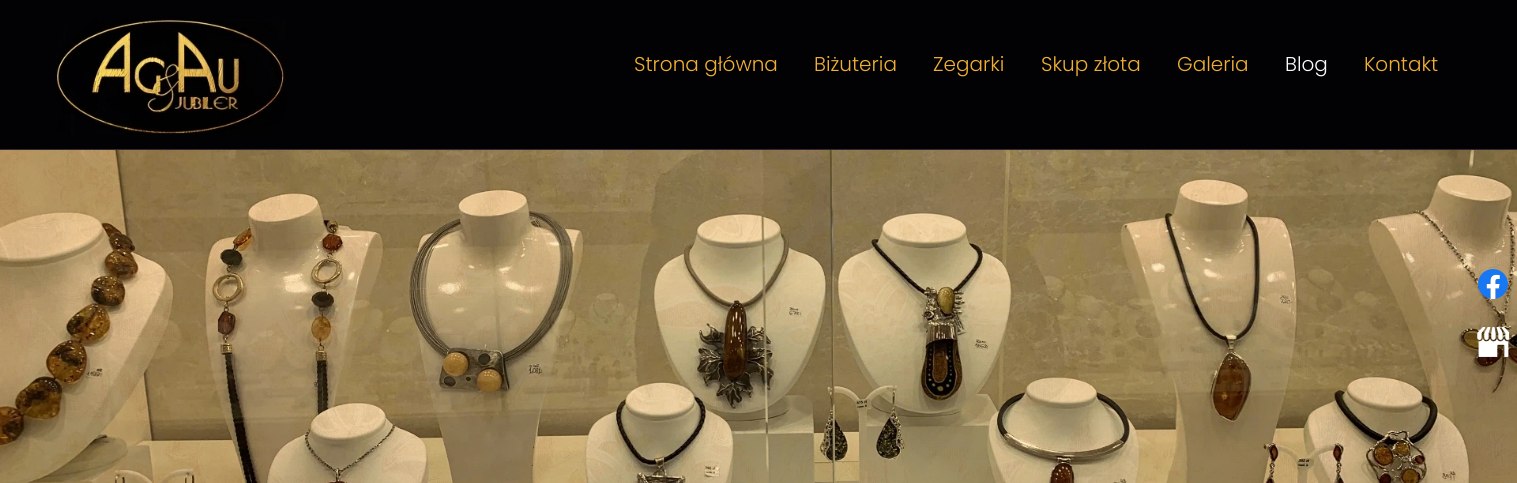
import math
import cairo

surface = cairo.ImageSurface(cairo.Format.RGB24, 1517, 483)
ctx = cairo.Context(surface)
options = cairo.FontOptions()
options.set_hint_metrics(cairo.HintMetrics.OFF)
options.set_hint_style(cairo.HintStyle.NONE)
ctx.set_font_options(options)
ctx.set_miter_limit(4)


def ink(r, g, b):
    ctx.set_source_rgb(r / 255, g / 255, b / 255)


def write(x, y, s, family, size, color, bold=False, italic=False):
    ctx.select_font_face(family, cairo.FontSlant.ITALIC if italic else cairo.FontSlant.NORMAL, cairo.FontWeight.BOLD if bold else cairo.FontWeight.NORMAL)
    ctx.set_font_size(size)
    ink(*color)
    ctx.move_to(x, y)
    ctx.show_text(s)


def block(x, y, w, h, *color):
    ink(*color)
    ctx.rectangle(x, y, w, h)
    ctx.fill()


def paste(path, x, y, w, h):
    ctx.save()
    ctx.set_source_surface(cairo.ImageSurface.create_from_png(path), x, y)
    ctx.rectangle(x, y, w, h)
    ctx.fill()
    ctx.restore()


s1 = dict(family="Poppins Light", size=20, color=(240, 175, 52))
s2 = dict(family="Poppins Light", size=20, color=(250, 250, 250))

ink(50, 39, 50)
ctx.paint()
block(0, 0, 1517, 149, 2, 2, 4)
paste("pic1.png", 55, 18, 231, 117)
write(634, 71, "Strona główna", **s1)
write(814, 71, "Biżuteria", **s1)
write(933, 71, "Zegarki", **s1)
write(1041, 71, "Skup złota", **s1)
write(1177, 71, "Galeria", **s1)
write(1285, 71, "Blog", **s2)
write(1364, 71, "Kontakt", **s1)
paste("pic2.png", 0, 150, 1517, 333)
paste("pic3.png", 1478, 269, 30, 30)
paste("pic4.png", 1477, 327, 32, 30)
surface.write_to_png("screenshot.png")
